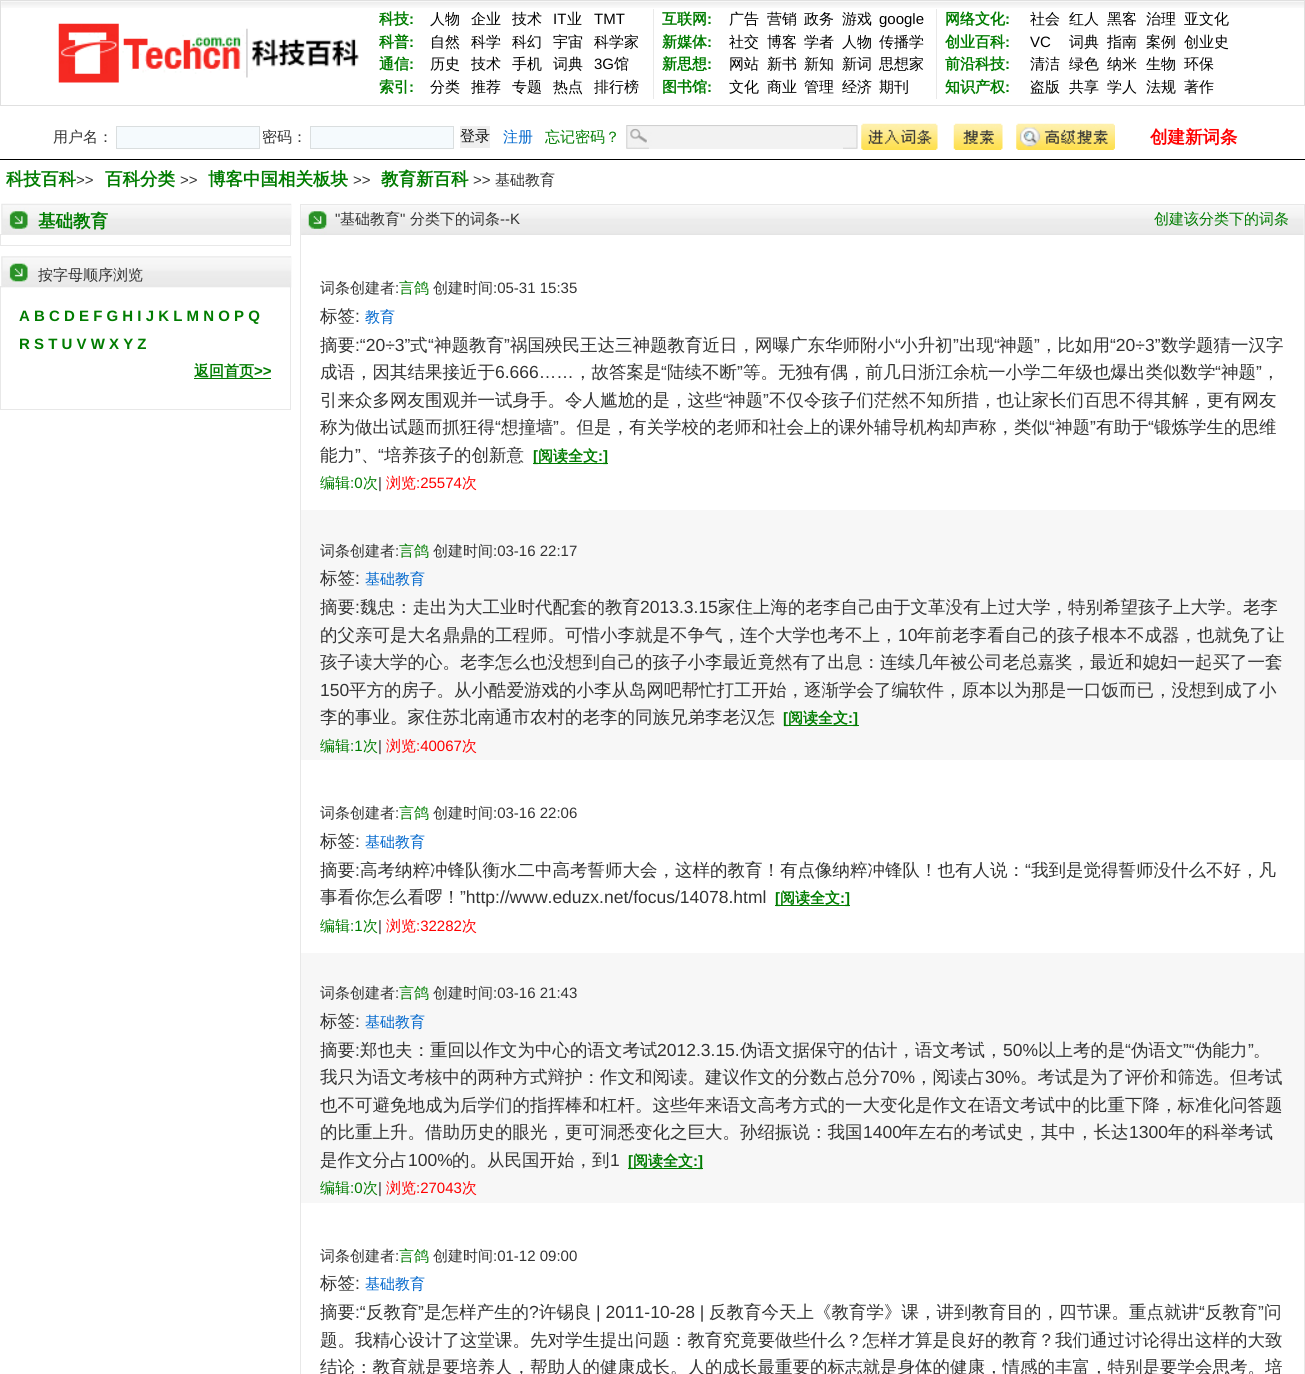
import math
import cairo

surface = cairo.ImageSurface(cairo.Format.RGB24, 1305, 1374)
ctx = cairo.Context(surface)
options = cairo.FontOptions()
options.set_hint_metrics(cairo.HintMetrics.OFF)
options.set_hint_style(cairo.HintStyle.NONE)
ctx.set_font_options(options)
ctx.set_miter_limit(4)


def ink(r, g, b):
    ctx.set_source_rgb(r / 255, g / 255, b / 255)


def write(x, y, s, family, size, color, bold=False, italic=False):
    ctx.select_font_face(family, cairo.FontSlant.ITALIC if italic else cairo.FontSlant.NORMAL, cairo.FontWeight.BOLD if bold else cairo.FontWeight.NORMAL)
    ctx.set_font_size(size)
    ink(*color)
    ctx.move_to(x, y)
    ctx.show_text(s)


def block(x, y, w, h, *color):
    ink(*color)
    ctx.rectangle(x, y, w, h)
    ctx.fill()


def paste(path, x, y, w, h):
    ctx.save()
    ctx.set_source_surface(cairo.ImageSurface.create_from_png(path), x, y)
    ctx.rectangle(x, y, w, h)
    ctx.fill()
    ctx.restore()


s1 = dict(family="WenQuanYi Zen Hei", size=15, color=(0, 124, 0), bold=True)
s2 = dict(family="Liberation Sans", size=15, color=(0, 124, 0), bold=True)
s3 = dict(family="WenQuanYi Zen Hei Medium", size=15, color=(0, 0, 0))
s4 = dict(family="Liberation Sans", size=15, color=(0, 0, 0))
s5 = dict(family="WenQuanYi Zen Hei Medium", size=15, color=(51, 51, 51))
s6 = dict(family="WenQuanYi Zen Hei Medium", size=15, color=(17, 17, 17))
s7 = dict(family="WenQuanYi Zen Hei Medium", size=15, color=(2, 104, 205))
s8 = dict(family="WenQuanYi Zen Hei Medium", size=15, color=(0, 124, 0))
s9 = dict(family="WenQuanYi Zen Hei", size=17.5, color=(255, 0, 0), bold=True)
s10 = dict(family="WenQuanYi Zen Hei", size=17.5, color=(0, 124, 0), bold=True)
s11 = dict(family="Liberation Sans", size=15, color=(51, 51, 51))
s12 = dict(family="WenQuanYi Zen Hei Medium", size=17.5, color=(51, 51, 51))
s13 = dict(family="Liberation Sans", size=17.5, color=(51, 51, 51))
s14 = dict(family="Liberation Sans", size=15, color=(0, 124, 0))
s15 = dict(family="WenQuanYi Zen Hei Medium", size=15, color=(255, 0, 0))
s16 = dict(family="Liberation Sans", size=15, color=(255, 0, 0))

ink(255, 255, 255)
ctx.paint()
block(0, 0, 1305, 1, 224, 224, 224)
block(1304, 0, 1, 106, 224, 224, 224)
block(0, 105, 1305, 1, 224, 224, 224)
block(0, 0, 1, 106, 224, 224, 224)
paste("pic1.png", 1, 1, 1303, 7)
paste("pic2.png", 58, 23, 301, 60)
block(653, 9, 1, 90, 233, 233, 233)
write(379, 24, "科技", **s1)
write(409, 24, ":", **s2)
write(430, 24, "人物", **s3)
write(471, 24, "企业", **s3)
write(512, 24, "技术", **s3)
write(553, 24, "IT", **s4)
write(567, 24, "业", **s3)
write(594, 24, "TMT", **s4)
write(379, 47, "科普", **s1)
write(409, 47, ":", **s2)
write(430, 47, "自然", **s3)
write(471, 47, "科学", **s3)
write(512, 47, "科幻", **s3)
write(553, 47, "宇宙", **s3)
write(594, 47, "科学家", **s3)
write(379, 69, "通信", **s1)
write(409, 69, ":", **s2)
write(430, 69, "历史", **s3)
write(471, 69, "技术", **s3)
write(512, 69, "手机", **s3)
write(553, 69, "词典", **s3)
write(594, 69, "3G", **s4)
write(614, 69, "馆", **s3)
write(379, 92, "索引", **s1)
write(409, 92, ":", **s2)
write(430, 92, "分类", **s3)
write(471, 92, "推荐", **s3)
write(512, 92, "专题", **s3)
write(553, 92, "热点", **s3)
write(594, 92, "排行榜", **s3)
block(936, 9, 1, 90, 233, 233, 233)
write(662, 24, "互联网", **s1)
write(707, 24, ":", **s2)
write(729, 24, "广告", **s3)
write(767, 24, "营销", **s3)
write(804, 24, "政务", **s3)
write(842, 24, "游戏", **s3)
write(879, 24, "google", **s4)
write(662, 47, "新媒体", **s1)
write(707, 47, ":", **s2)
write(729, 47, "社交", **s3)
write(767, 47, "博客", **s3)
write(804, 47, "学者", **s3)
write(842, 47, "人物", **s3)
write(879, 47, "传播学", **s3)
write(662, 69, "新思想", **s1)
write(707, 69, ":", **s2)
write(729, 69, "网站", **s3)
write(767, 69, "新书", **s3)
write(804, 69, "新知", **s3)
write(842, 69, "新词", **s3)
write(879, 69, "思想家", **s3)
write(662, 92, "图书馆", **s1)
write(707, 92, ":", **s2)
write(729, 92, "文化", **s3)
write(767, 92, "商业", **s3)
write(804, 92, "管理", **s3)
write(842, 92, "经济", **s3)
write(879, 92, "期刊", **s3)
write(945, 24, "网络文化", **s1)
write(1005, 24, ":", **s2)
write(1030, 24, "社会", **s3)
write(1069, 24, "红人", **s3)
write(1107, 24, "黑客", **s3)
write(1146, 24, "治理", **s3)
write(1184, 24, "亚文化", **s3)
write(945, 47, "创业百科", **s1)
write(1005, 47, ":", **s2)
write(1030, 47, "VC", **s4)
write(1069, 47, "词典", **s3)
write(1107, 47, "指南", **s3)
write(1146, 47, "案例", **s3)
write(1184, 47, "创业史", **s3)
write(945, 69, "前沿科技", **s1)
write(1005, 69, ":", **s2)
write(1030, 69, "清洁", **s3)
write(1069, 69, "绿色", **s3)
write(1107, 69, "纳米", **s3)
write(1146, 69, "生物", **s3)
write(1184, 69, "环保", **s3)
write(945, 92, "知识产权", **s1)
write(1005, 92, ":", **s2)
write(1030, 92, "盗版", **s3)
write(1069, 92, "共享", **s3)
write(1107, 92, "学人", **s3)
write(1146, 92, "法规", **s3)
write(1184, 92, "著作", **s3)
block(0, 159, 1305, 1, 0, 0, 0)
write(53, 142, "用户名：", **s5)
ink(245, 250, 253)
ctx.rectangle(116.5, 126.5, 143, 22)
ctx.fill_preserve()
ink(218, 222, 223)
ctx.set_line_width(1)
ctx.stroke()
write(262, 142, "密码：", **s5)
ink(245, 250, 253)
ctx.rectangle(310.5, 126.5, 143, 22)
ctx.fill_preserve()
ink(218, 222, 223)
ctx.stroke()
block(460, 126, 30, 22, 239, 239, 239)
write(460, 141, "登录", **s6)
write(503, 142, "注册", **s7)
write(545, 142, "忘记密码？", **s8)
paste("pic3.png", 626, 125, 232, 24)
block(649, 147, 194, 2, 242, 242, 242)
paste("pic4.png", 861, 123, 77, 27)
paste("pic5.png", 953, 123, 50, 27)
paste("pic6.png", 1016, 123, 99, 27)
write(1150, 143, "创建新词条", **s9)
write(6, 185, "科技百科", **s10)
write(76, 185, ">>", **s11)
write(105, 185, "百科分类", **s10)
write(180, 185, ">>", **s11)
write(208, 185, "博客中国相关板块", **s10)
write(353, 185, ">>", **s11)
write(381, 185, "教育新百科", **s10)
write(473, 185, ">>", **s11)
write(495, 185, "基础教育", **s5)
paste("pic7.png", 1, 203, 291, 32)
write(38, 227, "基础教育", **s10)
block(0, 234, 2, 1, 232, 232, 232)
block(290, 234, 1, 12, 232, 232, 232)
block(0, 245, 291, 1, 232, 232, 232)
block(0, 234, 1, 12, 232, 232, 232)
paste("pic8.png", 1, 256, 291, 32)
write(38, 280, "按字母顺序浏览", **s5)
block(0, 286, 2, 1, 232, 232, 232)
block(290, 286, 1, 124, 232, 232, 232)
block(0, 409, 291, 1, 232, 232, 232)
block(0, 286, 1, 124, 232, 232, 232)
write(19, 321, "A B C D E F G H I J K L M N O P Q", **s2)
write(19, 349, "R S T U V W X Y Z", **s2)
block(194, 378, 77, 1, 0, 124, 0)
write(194, 376, "返回首页", **s1)
write(254, 376, ">>", **s2)
block(300, 204, 1005, 1, 232, 232, 232)
block(1304, 204, 1, 1170, 232, 232, 232)
block(300, 204, 1, 1170, 232, 232, 232)
paste("pic9.png", 301, 205, 1003, 30)
paste("pic10.png", 301, 211, 26, 24)
write(335, 224, "\"", **s11)
write(340, 224, "基础教育", **s5)
write(400, 224, "\"", **s11)
write(410, 224, "分类下的词条", **s5)
write(500, 224, "--K", **s11)
write(1154, 224, "创建该分类下的词条", **s8)
write(320, 293, "词条创建者", **s5)
write(395, 293, ":", **s11)
write(399, 293, "言鸽", **s8)
write(433, 293, "创建时间", **s5)
write(493, 293, ":05-31 15:35", **s11)
write(320, 322, "标签", **s12)
write(355, 322, ":", **s13)
write(365, 322, "教育", **s7)
write(320, 351, "摘要", **s12)
write(355, 351, ":“20÷3”", **s13)
write(410, 351, "式", **s12)
write(428, 351, "“", **s13)
write(434, 351, "神题教育", **s12)
write(504, 351, "”", **s13)
write(510, 351, "祸国殃民王达三神题教育近日，网曝广东华师附小", **s12)
write(895, 351, "“", **s13)
write(900, 351, "小升初", **s12)
write(953, 351, "”", **s13)
write(959, 351, "出现", **s12)
write(994, 351, "“", **s13)
write(999, 351, "神题", **s12)
write(1034, 351, "”", **s13)
write(1040, 351, "，比如用", **s12)
write(1110, 351, "“20÷3”", **s13)
write(1161, 351, "数学题猜一汉字", **s12)
write(320, 378, "成语，因其结果接近于", **s12)
write(495, 378, "6.666……", **s13)
write(574, 378, "，故答案是", **s12)
write(661, 378, "“", **s13)
write(667, 378, "陆续不断", **s12)
write(737, 378, "”", **s13)
write(743, 378, "等。无独有偶，前几日浙江余杭一小学二年级也爆出类似数学", **s12)
write(1215, 378, "“", **s13)
write(1221, 378, "神题", **s12)
write(1256, 378, "”", **s13)
write(1262, 378, "，", **s12)
write(320, 406, "引来众多网友围观并一试身手。令人尴尬的是，这些", **s12)
write(723, 406, "“", **s13)
write(728, 406, "神题", **s12)
write(763, 406, "”", **s13)
write(769, 406, "不仅令孩子们茫然不知所措，也让家长们百思不得其解，更有网友", **s12)
write(320, 433, "称为做出试题而抓狂得", **s12)
write(495, 433, "“", **s13)
write(501, 433, "想撞墙", **s12)
write(553, 433, "”", **s13)
write(559, 433, "。但是，有关学校的老师和社会上的课外辅导机构却声称，类似", **s12)
write(1049, 433, "“", **s13)
write(1055, 433, "神题", **s12)
write(1090, 433, "”", **s13)
write(1096, 433, "有助于", **s12)
write(1148, 433, "“", **s13)
write(1154, 433, "锻炼学生的思维", **s12)
write(320, 461, "能力", **s12)
write(355, 461, "”", **s13)
write(361, 461, "、", **s12)
write(378, 461, "“", **s13)
write(384, 461, "培养孩子的创新意", **s12)
block(533, 463, 75, 1, 0, 124, 0)
write(533, 461, "[", **s2)
write(538, 461, "阅读全文", **s1)
write(598, 461, ":]", **s2)
write(320, 488, "编辑", **s8)
write(350, 488, ":0", **s14)
write(363, 488, "次", **s8)
write(378, 488, "|", **s11)
write(386, 488, "浏览", **s15)
write(416, 488, ":25574", **s16)
write(462, 488, "次", **s15)
block(301, 510, 1003, 250, 247, 247, 247)
write(320, 556, "词条创建者", **s5)
write(395, 556, ":", **s11)
write(399, 556, "言鸽", **s8)
write(433, 556, "创建时间", **s5)
write(493, 556, ":03-16 22:17", **s11)
write(320, 584, "标签", **s12)
write(355, 584, ":", **s13)
write(365, 584, "基础教育", **s7)
write(320, 613, "摘要", **s12)
write(355, 613, ":", **s13)
write(360, 613, "魏忠：走出为大工业时代配套的教育", **s12)
write(640, 613, "2013.3.15", **s13)
write(718, 613, "家住上海的老李自己由于文革没有上过大学，特别希望孩子上大学。老李", **s12)
write(320, 641, "的父亲可是大名鼎鼎的工程师。可惜小李就是不争气，连个大学也考不上，", **s12)
write(898, 641, "10", **s13)
write(917, 641, "年前老李看自己的孩子根本不成器，也就免了让", **s12)
write(320, 668, "孩子读大学的心。老李怎么也没想到自己的孩子小李最近竟然有了出息：连续几年被公司老总嘉奖，最近和媳妇一起买了一套", **s12)
write(320, 696, "150", **s13)
write(349, 696, "平方的房子。从小酷爱游戏的小李从岛网吧帮忙打工开始，逐渐学会了编软件，原本以为那是一口饭而已，没想到成了小", **s12)
write(320, 723, "李的事业。家住苏北南通市农村的老李的同族兄弟李老汉怎", **s12)
block(784, 725, 75, 1, 0, 124, 0)
write(783, 723, "[", **s2)
write(788, 723, "阅读全文", **s1)
write(848, 723, ":]", **s2)
write(320, 751, "编辑", **s8)
write(350, 751, ":1", **s14)
write(363, 751, "次", **s8)
write(378, 751, "|", **s11)
write(386, 751, "浏览", **s15)
write(416, 751, ":40067", **s16)
write(462, 751, "次", **s15)
write(320, 818, "词条创建者", **s5)
write(395, 818, ":", **s11)
write(399, 818, "言鸽", **s8)
write(433, 818, "创建时间", **s5)
write(493, 818, ":03-16 22:06", **s11)
write(320, 847, "标签", **s12)
write(355, 847, ":", **s13)
write(365, 847, "基础教育", **s7)
write(320, 876, "摘要", **s12)
write(360, 876, "高考纳粹冲锋队衡水二中高考誓师大会，这样的教育！有点像纳粹冲锋队！也有人说：", **s12)
write(1025, 876, "“", **s13)
write(1031, 876, "我到是觉得誓师没什么不好，凡", **s12)
write(355, 876, ":", **s13)
write(320, 903, "事看你怎么看啰！", **s12)
write(460, 903, "”http://www.eduzx.net/focus/14078.html", **s13)
block(775, 905, 75, 1, 0, 124, 0)
write(775, 903, "[", **s2)
write(780, 903, "阅读全文", **s1)
write(840, 903, ":]", **s2)
write(320, 931, "编辑", **s8)
write(350, 931, ":1", **s14)
write(363, 931, "次", **s8)
write(378, 931, "|", **s11)
write(386, 931, "浏览", **s15)
write(416, 931, ":32282", **s16)
write(462, 931, "次", **s15)
block(301, 953, 1003, 250, 247, 247, 247)
write(320, 998, "词条创建者", **s5)
write(395, 998, ":", **s11)
write(399, 998, "言鸽", **s8)
write(433, 998, "创建时间", **s5)
write(493, 998, ":03-16 21:43", **s11)
write(320, 1027, "标签", **s12)
write(355, 1027, ":", **s13)
write(365, 1027, "基础教育", **s7)
write(320, 1056, "摘要", **s12)
write(360, 1056, "郑也夫：重回以作文为中心的语文考试", **s12)
write(657, 1056, "2012.3.15.", **s13)
write(740, 1056, "伪语文据保守的估计，语文考试，", **s12)
write(1003, 1056, "50%", **s13)
write(1038, 1056, "以上考的是", **s12)
write(1125, 1056, "“", **s13)
write(1131, 1056, "伪语文", **s12)
write(1183, 1056, "”“", **s13)
write(1195, 1056, "伪能力", **s12)
write(1248, 1056, "”", **s13)
write(355, 1056, ":", **s13)
write(1253, 1056, "。", **s12)
write(320, 1083, "我只为语文考核中的两种方式辩护：作文和阅读。建议作文的分数占总分", **s12)
write(880, 1083, "70%", **s13)
write(915, 1083, "，阅读占", **s12)
write(985, 1083, "30%", **s13)
write(1020, 1083, "。考试是为了评价和筛选。但考试", **s12)
write(320, 1111, "也不可避免地成为后学们的指挥棒和杠杆。这些年来语文高考方式的一大变化是作文在语文考试中的比重下降，标准化问答题", **s12)
write(320, 1138, "的比重上升。借助历史的眼光，更可洞悉变化之巨大。孙绍振说：我国", **s12)
write(863, 1138, "1400", **s13)
write(901, 1138, "年左右的考试史，其中，长达", **s12)
write(1129, 1138, "1300", **s13)
write(1168, 1138, "年的科举考试", **s12)
write(320, 1166, "是作文分占", **s12)
write(408, 1166, "100%", **s13)
write(452, 1166, "的。从民国开始，到", **s12)
write(610, 1166, "1", **s13)
block(628, 1168, 75, 1, 0, 124, 0)
write(628, 1166, "[", **s2)
write(633, 1166, "阅读全文", **s1)
write(693, 1166, ":]", **s2)
write(320, 1193, "编辑", **s8)
write(350, 1193, ":0", **s14)
write(363, 1193, "次", **s8)
write(378, 1193, "|", **s11)
write(386, 1193, "浏览", **s15)
write(416, 1193, ":27043", **s16)
write(462, 1193, "次", **s15)
write(320, 1261, "词条创建者", **s5)
write(395, 1261, ":", **s11)
write(399, 1261, "言鸽", **s8)
write(433, 1261, "创建时间", **s5)
write(493, 1261, ":01-12 09:00", **s11)
write(320, 1289, "标签", **s12)
write(355, 1289, ":", **s13)
write(365, 1289, "基础教育", **s7)
write(320, 1318, "摘要", **s12)
write(355, 1318, ":“", **s13)
write(366, 1318, "反教育", **s12)
write(418, 1318, "”", **s13)
write(424, 1318, "是怎样产生的", **s12)
write(529, 1318, "?", **s13)
write(539, 1318, "许锡良", **s12)
write(596, 1318, "| 2011-10-28 |", **s13)
write(709, 1318, "反教育今天上《教育学》课，讲到教育目的，四节课。重点就讲", **s12)
write(1199, 1318, "“", **s13)
write(1205, 1318, "反教育", **s12)
write(1258, 1318, "”", **s13)
write(1264, 1318, "问", **s12)
write(320, 1346, "题。我精心设计了这堂课。先对学生提出问题：教育究竟要做些什么？怎样才算是良好的教育？我们通过讨论得出这样的大致", **s12)
write(320, 1373, "结论：教育就是要培养人，帮助人的健康成长。人的成长最重要的标志就是身体的健康，情感的丰富，特别是要学会思考。培", **s12)
surface.write_to_png("screenshot.png")
